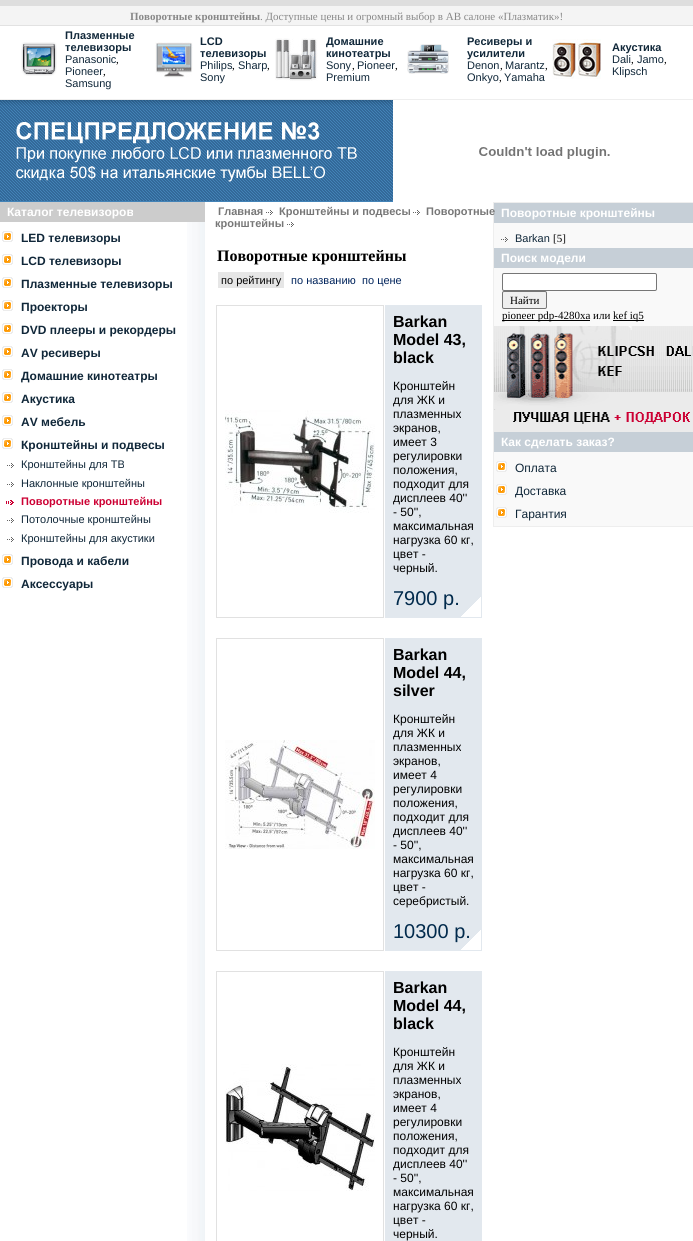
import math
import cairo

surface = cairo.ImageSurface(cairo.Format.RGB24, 693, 1241)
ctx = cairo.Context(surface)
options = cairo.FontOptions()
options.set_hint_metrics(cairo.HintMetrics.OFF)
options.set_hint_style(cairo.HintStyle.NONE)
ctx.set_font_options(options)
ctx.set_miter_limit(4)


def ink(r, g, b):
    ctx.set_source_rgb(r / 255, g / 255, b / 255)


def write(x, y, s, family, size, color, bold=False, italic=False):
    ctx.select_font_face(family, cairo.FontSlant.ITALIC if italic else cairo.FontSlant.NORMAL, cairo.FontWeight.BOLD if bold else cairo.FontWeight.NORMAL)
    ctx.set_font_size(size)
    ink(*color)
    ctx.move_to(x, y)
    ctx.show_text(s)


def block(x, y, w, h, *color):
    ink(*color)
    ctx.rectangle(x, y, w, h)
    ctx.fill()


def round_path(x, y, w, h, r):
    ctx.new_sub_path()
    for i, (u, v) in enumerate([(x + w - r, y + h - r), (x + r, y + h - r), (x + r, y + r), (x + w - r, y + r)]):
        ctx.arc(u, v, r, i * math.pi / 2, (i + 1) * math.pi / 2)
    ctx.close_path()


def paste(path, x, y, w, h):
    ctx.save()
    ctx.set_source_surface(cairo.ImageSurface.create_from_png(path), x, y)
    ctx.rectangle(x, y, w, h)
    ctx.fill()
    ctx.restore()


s1 = dict(family="Liberation Serif", size=11, color=(136, 136, 136), bold=True)
s2 = dict(family="Liberation Serif", size=11, color=(136, 136, 136))
s3 = dict(family="Liberation Sans", size=11, color=(16, 39, 57), bold=True)
s4 = dict(family="Liberation Sans", size=11, color=(16, 39, 57))
s5 = dict(family="Liberation Serif", size=11, color=(0, 0, 0))
s6 = dict(family="Liberation Sans", size=12, color=(255, 255, 255), bold=True)
s7 = dict(family="Liberation Sans", size=12, color=(16, 39, 57), bold=True)
s8 = dict(family="Liberation Sans", size=11, color=(204, 0, 51), bold=True)
s9 = dict(family="Liberation Sans", size=11, color=(119, 119, 119), bold=True)
s10 = dict(family="Liberation Serif", size=16, color=(0, 0, 0), bold=True)
s11 = dict(family="Liberation Sans", size=11, color=(0, 0, 0))
s12 = dict(family="Liberation Sans", size=11, color=(0, 35, 91))
s13 = dict(family="Liberation Sans", size=16, color=(0, 0, 0), bold=True)
s14 = dict(family="Liberation Sans", size=12, color=(0, 0, 0))
s15 = dict(family="Liberation Sans", size=20, color=(1, 42, 76))
s16 = dict(family="Liberation Sans", size=12, color=(16, 39, 57))

ink(255, 255, 255)
ctx.paint()
paste("pic1.png", 0, 0, 693, 26)
write(130, 20, "Поворотные кронштейны", **s1)
write(260, 20, ". Доступные цены и огромный выбор в АВ салоне «Плазматик»!", **s2)
paste("pic2.png", 21, 42, 36, 34)
write(65, 39, "Плазменные", **s3)
write(65, 51, "телевизоры", **s3)
write(65, 63, "Panasonic", **s4)
write(116, 63, ",", **s5)
write(65, 75, "Pioneer", **s4)
write(103, 75, ",", **s5)
write(65, 87, "Samsung", **s4)
paste("pic3.png", 155, 42, 38, 36)
write(200, 45, "LCD", **s3)
write(200, 57, "телевизоры", **s3)
write(200, 69, "Philips", **s4)
write(232, 69, ",", **s5)
write(238, 69, "Sharp", **s4)
write(267, 69, ",", **s5)
write(200, 81, "Sony", **s4)
paste("pic4.png", 275, 38, 43, 43)
write(326, 45, "Домашние", **s3)
write(326, 57, "кинотеатры", **s3)
write(326, 69, "Sony", **s4)
write(352, 69, ",", **s5)
write(357, 69, "Pioneer", **s4)
write(395, 69, ",", **s5)
write(326, 81, "Premium", **s4)
paste("pic5.png", 407, 44, 42, 30)
write(467, 45, "Ресиверы и", **s3)
write(467, 57, "усилители", **s3)
write(467, 69, "Denon", **s4)
write(500, 69, ",", **s5)
write(505, 69, "Marantz", **s4)
write(545, 69, ",", **s5)
write(467, 81, "Onkyo", **s4)
write(499, 81, ",", **s5)
write(504, 81, "Yamaha", **s4)
paste("pic6.png", 552, 39, 49, 40)
write(612, 51, "Акустика", **s3)
write(612, 63, "Dali", **s4)
write(631, 63, ",", **s5)
write(637, 63, "Jamo", **s4)
write(664, 63, ",", **s5)
write(612, 75, "Klipsch", **s4)
block(0, 99, 693, 1, 238, 238, 238)
paste("pic7.png", 0, 100, 393, 102)
paste("pic8.png", 16, 122, 341, 60)
paste("pic9.png", 479, 147, 131, 12)
paste("pic10.png", 187, 222, 18, 1019)
block(0, 202, 205, 20, 204, 204, 204)
write(7, 216, "Каталог телевизоров", **s6)
paste("pic11.png", 2, 231, 11, 11)
write(21, 242, "LED телевизоры", **s7)
paste("pic11.png", 2, 254, 11, 11)
write(21, 265, "LCD телевизоры", **s7)
paste("pic11.png", 2, 277, 11, 11)
write(21, 288, "Плазменные телевизоры", **s7)
paste("pic11.png", 2, 300, 11, 11)
write(21, 311, "Проекторы", **s7)
paste("pic11.png", 2, 323, 11, 11)
write(21, 334, "DVD плееры и рекордеры", **s7)
paste("pic11.png", 2, 346, 11, 11)
write(21, 357, "AV ресиверы", **s7)
paste("pic11.png", 2, 369, 11, 11)
write(21, 380, "Домашние кинотеатры", **s7)
paste("pic11.png", 2, 392, 11, 11)
write(21, 403, "Акустика", **s7)
paste("pic11.png", 2, 415, 11, 11)
write(21, 426, "AV мебель", **s7)
paste("pic11.png", 2, 438, 11, 11)
write(21, 449, "Кронштейны и подвесы", **s7)
paste("pic12.png", 7, 463, 7, 5)
write(21, 468, "Кронштейны для ТВ", **s4)
paste("pic12.png", 7, 482, 7, 5)
write(21, 487, "Наклонные кронштейны", **s4)
paste("pic13.png", 6, 500, 8, 5)
write(21, 505, "Поворотные кронштейны", **s8)
paste("pic12.png", 7, 518, 7, 5)
write(21, 523, "Потолочные кронштейны", **s4)
paste("pic12.png", 7, 537, 7, 5)
write(21, 542, "Кронштейны для акустики", **s4)
paste("pic11.png", 2, 554, 11, 11)
write(21, 565, "Провода и кабели", **s7)
paste("pic11.png", 2, 577, 11, 11)
write(21, 588, "Аксессуары", **s7)
write(218, 215, "Главная", **s9)
paste("pic12.png", 266, 210, 7, 5)
write(279, 215, "Кронштейны и подвесы", **s9)
paste("pic12.png", 413, 210, 7, 5)
block(494, 223, 199, 303, 249, 249, 249)
ctx.rectangle(493.5, 202.5, 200, 324)
ink(238, 238, 238)
ctx.set_line_width(1)
ctx.stroke()
block(494, 203, 199, 20, 198, 207, 215)
write(426, 215, "Поворотные", **s9)
write(215, 227, "кронштейны", **s9)
paste("pic12.png", 287, 222, 7, 5)
write(217, 261, "Поворотные кронштейны", **s10)
block(218, 272, 66, 16, 230, 230, 230)
write(221, 284, "по рейтингу", **s11)
write(291, 284, "по названию", **s12)
write(362, 284, "по цене", **s12)
ctx.rectangle(216.5, 305.5, 167, 312)
ink(225, 225, 225)
ctx.stroke()
paste("pic14.png", 225, 410, 150, 103)
paste("pic15.png", 385, 305, 97, 313)
write(393, 327, "Barkan", **s13)
write(393, 345, "Model 43,", **s13)
write(393, 363, "black", **s13)
write(393, 390, "Кронштейн", **s14)
write(393, 404, "для ЖК и", **s14)
write(393, 418, "плазменных", **s14)
write(393, 432, "экранов,", **s14)
write(393, 446, "имеет 3", **s14)
write(393, 460, "регулировки", **s14)
write(393, 474, "положения,", **s14)
write(393, 488, "подходит для", **s14)
write(393, 502, "дисплеев 40''", **s14)
write(393, 516, "- 50'',", **s14)
write(393, 530, "максимальная", **s14)
write(393, 544, "нагрузка 60 кг,", **s14)
write(393, 558, "цвет -", **s14)
write(393, 572, "черный.", **s14)
write(393, 605, "7900 p.", **s15)
ctx.rectangle(216.5, 638.5, 167, 312)
ink(225, 225, 225)
ctx.stroke()
paste("pic16.png", 225, 740, 150, 109)
paste("pic15.png", 385, 638, 97, 313)
write(393, 660, "Barkan", **s13)
write(393, 678, "Model 44,", **s13)
write(393, 696, "silver", **s13)
write(393, 723, "Кронштейн", **s14)
write(393, 737, "для ЖК и", **s14)
write(393, 751, "плазменных", **s14)
write(393, 765, "экранов,", **s14)
write(393, 779, "имеет 4", **s14)
write(393, 793, "регулировки", **s14)
write(393, 807, "положения,", **s14)
write(393, 821, "подходит для", **s14)
write(393, 835, "дисплеев 40''", **s14)
write(393, 849, "- 50'',", **s14)
write(393, 863, "максимальная", **s14)
write(393, 877, "нагрузка 60 кг,", **s14)
write(393, 891, "цвет -", **s14)
write(393, 905, "серебристый.", **s14)
write(393, 938, "10300 p.", **s15)
ctx.rectangle(216.5, 971.5, 167, 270)
ink(225, 225, 225)
ctx.stroke()
paste("pic17.png", 225, 1064, 150, 127)
block(385, 971, 97, 270, 226, 232, 238)
write(393, 993, "Barkan", **s13)
write(393, 1011, "Model 44,", **s13)
write(393, 1029, "black", **s13)
write(393, 1056, "Кронштейн", **s14)
write(393, 1070, "для ЖК и", **s14)
write(393, 1084, "плазменных", **s14)
write(393, 1098, "экранов,", **s14)
write(393, 1112, "имеет 4", **s14)
write(393, 1126, "регулировки", **s14)
write(393, 1140, "положения,", **s14)
write(393, 1154, "подходит для", **s14)
write(393, 1168, "дисплеев 40''", **s14)
write(393, 1182, "- 50'',", **s14)
write(393, 1196, "максимальная", **s14)
write(393, 1210, "нагрузка 60 кг,", **s14)
write(393, 1224, "цвет -", **s14)
write(393, 1238, "черный.", **s14)
write(501, 217, "Поворотные кронштейны", **s6)
paste("pic18.png", 501, 237, 7, 5)
write(515, 242, "Barkan", **s4)
write(553, 242, "[5]", **s5)
block(494, 248, 199, 20, 198, 207, 215)
write(501, 262, "Поиск модели", **s6)
round_path(502.5, 273.5, 154, 17, 1.5)
ctx.fill_preserve()
ink(118, 118, 118)
ctx.stroke()
ink(239, 239, 239)
round_path(502.5, 291.5, 44, 17, 1.5)
ctx.fill_preserve()
ink(118, 118, 118)
ctx.stroke()
write(510, 304, "Найти", **s5)
block(502, 320, 88, 1, 0, 0, 0)
write(502, 319, "pioneer pdp-4280xa или", **s5)
block(613, 320, 31, 1, 0, 0, 0)
write(613, 319, "kef iq5", **s5)
paste("pic19.png", 494, 326, 199, 106)
block(494, 432, 199, 20, 198, 207, 215)
write(501, 446, "Как сделать заказ?", **s6)
paste("pic20.png", 496, 461, 11, 11)
write(515, 472, "Оплата", **s16)
paste("pic20.png", 496, 484, 11, 11)
write(515, 495, "Доставка", **s16)
paste("pic20.png", 496, 507, 11, 11)
write(515, 518, "Гарантия", **s16)
surface.write_to_png("screenshot.png")
